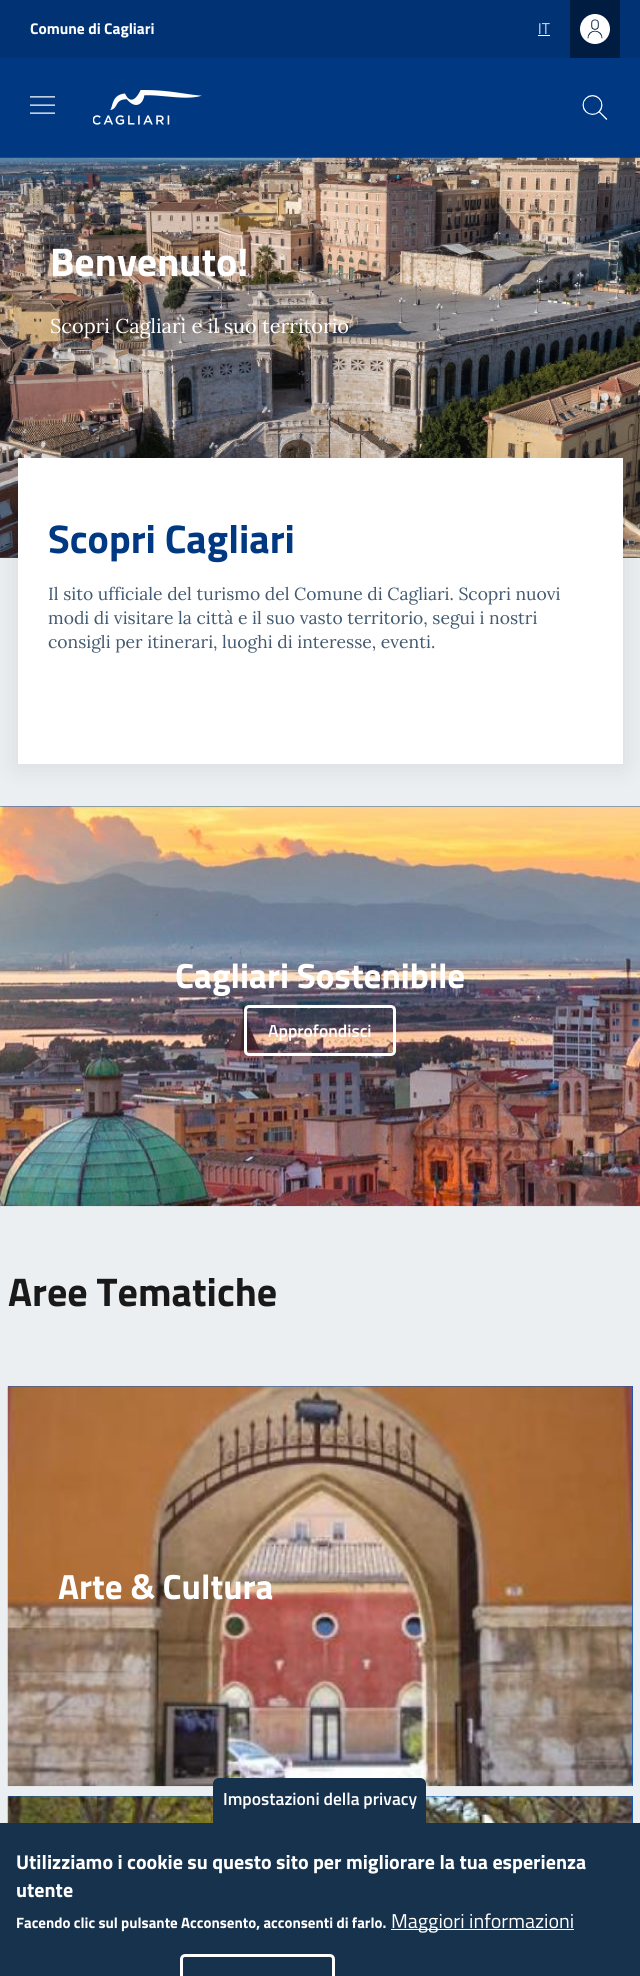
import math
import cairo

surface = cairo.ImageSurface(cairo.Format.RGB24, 640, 1976)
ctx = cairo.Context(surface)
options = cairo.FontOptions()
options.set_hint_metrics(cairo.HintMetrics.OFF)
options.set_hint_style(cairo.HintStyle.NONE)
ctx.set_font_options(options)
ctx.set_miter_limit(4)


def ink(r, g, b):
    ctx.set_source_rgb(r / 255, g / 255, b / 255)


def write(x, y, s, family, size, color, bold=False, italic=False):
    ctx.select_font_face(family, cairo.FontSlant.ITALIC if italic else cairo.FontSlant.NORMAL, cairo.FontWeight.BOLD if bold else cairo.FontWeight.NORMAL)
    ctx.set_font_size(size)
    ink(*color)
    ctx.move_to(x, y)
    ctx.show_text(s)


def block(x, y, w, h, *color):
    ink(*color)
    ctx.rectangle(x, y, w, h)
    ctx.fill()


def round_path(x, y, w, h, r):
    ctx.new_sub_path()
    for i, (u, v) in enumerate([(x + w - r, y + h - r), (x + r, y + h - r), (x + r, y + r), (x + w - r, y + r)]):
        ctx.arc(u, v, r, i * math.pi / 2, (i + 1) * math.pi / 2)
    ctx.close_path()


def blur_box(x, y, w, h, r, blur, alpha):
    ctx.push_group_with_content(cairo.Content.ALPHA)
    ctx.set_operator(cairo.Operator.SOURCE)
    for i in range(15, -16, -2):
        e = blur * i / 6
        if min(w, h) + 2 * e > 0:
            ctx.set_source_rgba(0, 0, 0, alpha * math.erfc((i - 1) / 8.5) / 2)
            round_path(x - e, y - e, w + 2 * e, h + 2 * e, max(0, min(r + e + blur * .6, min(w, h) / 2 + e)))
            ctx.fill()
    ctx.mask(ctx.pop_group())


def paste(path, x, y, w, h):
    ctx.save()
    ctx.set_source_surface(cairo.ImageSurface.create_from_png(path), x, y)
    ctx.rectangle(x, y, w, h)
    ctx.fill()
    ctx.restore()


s1 = dict(family="Titillium Web", size=15.5, color=(255, 255, 255), bold=True)
s2 = dict(family="Titillium Web Light", size=15.5, color=(255, 255, 255))
s3 = dict(family="Titillium Web", size=40, color=(255, 255, 255), bold=True)
s4 = dict(family="Lora", size=20, color=(255, 255, 255))
s5 = dict(family="Titillium Web", size=40, color=(0, 56, 130), bold=True)
s6 = dict(family="Lora", size=17.5, color=(67, 90, 112))
s7 = dict(family="Titillium Web", size=35, color=(255, 255, 255), bold=True)
s8 = dict(family="Titillium Web SemiBold", size=17.5, color=(255, 255, 255))
s9 = dict(family="Titillium Web", size=40, color=(25, 25, 26), bold=True)
s10 = dict(family="Titillium Web", size=20, color=(255, 255, 255), bold=True)
s11 = dict(family="Titillium Web", size=15, color=(255, 255, 255), bold=True)
s12 = dict(family="Titillium Web", size=20, color=(255, 255, 255))

ink(236, 239, 241)
ctx.paint()
block(0, 0, 640, 58, 0, 50, 116)
write(30, 34, "Comune di Cagliari", **s1)
write(538, 34, "IT", **s2)
block(538, 35, 12, 1, 255, 255, 255)
block(570, 0, 50, 58, 0, 28, 64)
ink(255, 255, 255)
ctx.new_path()
ctx.arc(595, 29, 15, 0, 2 * math.pi)
ctx.fill()
paste("pic1.png", 587, 19, 16, 20)
block(0, 58, 640, 100, 0, 56, 130)
paste("pic2.png", 93, 90, 109, 35)
paste("pic3.png", 582, 95, 26, 25)
paste("pic4.png", 30, 96, 25, 18)
block(0, 557, 640, 1, 0, 88, 204)
paste("pic5.png", 0, 157, 640, 401)
write(50, 276, "Benvenuto!", **s3)
write(50, 333, "Scopri Cagliari e il suo territorio", **s4)
ink(0, 0, 0)
blur_box(18, 460, 605, 306, 0, 12.5, 0.1)
block(18, 458, 605, 306, 255, 255, 255)
write(48, 553, "Scopri Cagliari", **s5)
write(48, 600, "Il sito ufficiale del turismo del Comune di Cagliari. Scopri nuovi", **s6)
write(48, 624, "modi di visitare la città e il suo vasto territorio, segui i nostri", **s6)
write(48, 648, "consigli per itinerari, luoghi di interesse, eventi.", **s6)
block(0, 806, 640, 1, 0, 88, 204)
paste("pic6.png", 0, 806, 640, 401)
write(175, 988, "Cagliari Sostenibile", **s7)
round_path(245.5, 1006.5, 149, 48, 3.5)
ctx.set_line_width(3)
ctx.stroke()
write(268, 1037, "Approfondisci", **s8)
write(8, 1306, "Aree Tematiche", **s9)
block(8, 1386, 625, 400, 0, 88, 204)
paste("pic7.png", 7, 1386, 626, 401)
write(58, 1599, "Arte & Cultura", **s7)
block(8, 1796, 625, 27, 0, 88, 204)
paste("pic8.png", 7, 1796, 626, 27)
ink(23, 50, 77)
ctx.new_path()
ctx.move_to(219, 1778)
ctx.line_to(420, 1778)
ctx.curve_to(423.5, 1778, 426, 1780.5, 426, 1784)
ctx.line_to(426, 1823)
ctx.line_to(213, 1823)
ctx.line_to(213, 1784)
ctx.curve_to(213, 1780.5, 215.5, 1778, 219, 1778)
ctx.close_path()
ctx.fill()
write(223, 1805, "Impostazioni della privacy", **s8)
block(0, 1823, 640, 153, 23, 50, 77)
write(16, 1869, "Utilizziamo i cookie su questo sito per migliorare la tua esperienza", **s10)
write(16, 1897, "utente", **s10)
write(16, 1928, "Facendo clic sul pulsante Acconsento, acconsenti di farlo.", **s11)
block(391, 1929, 183, 1, 255, 255, 255)
write(391, 1928, "Maggiori informazioni", **s12)
round_path(181.5, 1955.5, 152, 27, 3.5)
ctx.stroke()
surface.write_to_png("screenshot.png")
